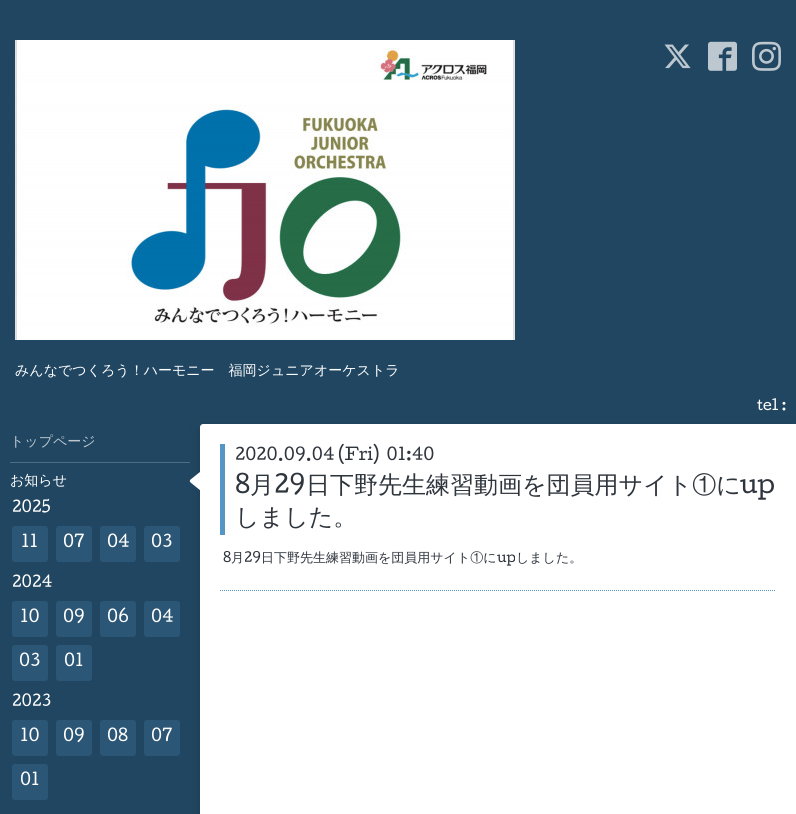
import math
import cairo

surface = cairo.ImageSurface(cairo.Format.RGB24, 796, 814)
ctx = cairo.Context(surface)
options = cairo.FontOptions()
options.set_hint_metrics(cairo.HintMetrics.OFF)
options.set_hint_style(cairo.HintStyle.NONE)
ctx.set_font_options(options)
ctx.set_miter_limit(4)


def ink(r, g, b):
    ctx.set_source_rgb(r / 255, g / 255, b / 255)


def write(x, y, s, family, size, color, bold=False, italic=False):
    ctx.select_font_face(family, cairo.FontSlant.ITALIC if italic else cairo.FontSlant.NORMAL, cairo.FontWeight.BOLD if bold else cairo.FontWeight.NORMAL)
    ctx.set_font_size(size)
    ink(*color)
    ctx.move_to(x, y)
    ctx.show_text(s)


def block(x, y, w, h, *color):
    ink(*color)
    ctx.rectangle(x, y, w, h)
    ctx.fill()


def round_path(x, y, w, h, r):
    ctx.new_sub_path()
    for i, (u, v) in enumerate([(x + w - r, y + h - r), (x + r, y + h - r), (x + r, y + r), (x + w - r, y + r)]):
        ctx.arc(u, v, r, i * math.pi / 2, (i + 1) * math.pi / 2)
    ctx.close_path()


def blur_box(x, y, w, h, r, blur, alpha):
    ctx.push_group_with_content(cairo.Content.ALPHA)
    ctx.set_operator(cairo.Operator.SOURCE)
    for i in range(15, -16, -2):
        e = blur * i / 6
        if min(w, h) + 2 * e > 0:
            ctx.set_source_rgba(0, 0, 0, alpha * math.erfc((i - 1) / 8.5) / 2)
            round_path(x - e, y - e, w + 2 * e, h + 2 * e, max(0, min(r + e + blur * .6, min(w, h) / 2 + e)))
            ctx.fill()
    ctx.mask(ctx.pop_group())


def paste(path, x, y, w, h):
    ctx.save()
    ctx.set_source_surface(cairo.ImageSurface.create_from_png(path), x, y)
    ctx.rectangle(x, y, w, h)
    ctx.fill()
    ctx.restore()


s1 = dict(family="WenQuanYi Zen Hei Medium", size=14, color=(255, 255, 255))
s2 = dict(family="Cutive", size=14, color=(255, 255, 255))
s3 = dict(family="WenQuanYi Zen Hei Medium", size=14, color=(188, 199, 207))
s4 = dict(family="Cutive", size=15, color=(255, 255, 255))
s5 = dict(family="Cutive", size=16, color=(255, 255, 255))
s6 = dict(family="Cutive", size=16, color=(47, 53, 61))
s7 = dict(family="Cutive", size=24, color=(47, 53, 61))
s8 = dict(family="WenQuanYi Zen Hei Medium", size=24, color=(47, 53, 61))
s9 = dict(family="Cutive", size=13, color=(47, 53, 61))
s10 = dict(family="WenQuanYi Zen Hei Medium", size=13, color=(47, 53, 61))

ink(33, 70, 97)
ctx.paint()
paste("pic1.png", 15, 40, 500, 300)
paste("pic2.png", 664, 44, 27, 25)
paste("pic3.png", 708, 41, 29, 30)
paste("pic4.png", 752, 41, 29, 30)
write(15, 375, "みんなでつくろう！ハーモニー　福岡ジュニアオーケストラ", **s1)
write(757, 410, "tel :", **s2)
write(10, 446, "トップページ", **s3)
ink(23, 48, 67)
blur_box(200, 427, 596, 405, 3, 5, 0.4)
paste("pic5.png", 189, 472, 11, 18)
block(10, 462, 180, 1, 79, 108, 130)
write(10, 485, "お知らせ", **s1)
write(12, 512, "2025", **s4)
ink(44, 86, 117)
round_path(12, 526, 36, 36, 3)
ctx.fill()
write(21, 547, "11", **s5)
ink(44, 86, 117)
round_path(56, 526, 36, 36, 3)
ctx.fill()
write(63, 547, "07", **s5)
ink(44, 86, 117)
round_path(100, 526, 36, 36, 3)
ctx.fill()
write(107, 547, "04", **s5)
ink(44, 86, 117)
round_path(144, 526, 36, 36, 3)
ctx.fill()
write(151, 547, "03", **s5)
write(12, 587, "2024", **s4)
ink(44, 86, 117)
round_path(12, 601, 36, 36, 3)
ctx.fill()
write(20, 622, "10", **s5)
ink(44, 86, 117)
round_path(56, 601, 36, 36, 3)
ctx.fill()
write(63, 622, "09", **s5)
ink(44, 86, 117)
round_path(100, 601, 36, 36, 3)
ctx.fill()
write(107, 622, "06", **s5)
ink(44, 86, 117)
round_path(144, 601, 36, 36, 3)
ctx.fill()
write(151, 622, "04", **s5)
ink(44, 86, 117)
round_path(12, 645, 36, 36, 3)
ctx.fill()
write(19, 666, "03", **s5)
ink(44, 86, 117)
round_path(56, 645, 36, 36, 3)
ctx.fill()
write(64, 666, "01", **s5)
write(12, 706, "2023", **s4)
ink(44, 86, 117)
round_path(12, 720, 36, 36, 3)
ctx.fill()
write(20, 741, "10", **s5)
ink(44, 86, 117)
round_path(56, 720, 36, 36, 3)
ctx.fill()
write(63, 741, "09", **s5)
ink(44, 86, 117)
round_path(100, 720, 36, 36, 3)
ctx.fill()
write(107, 741, "08", **s5)
ink(44, 86, 117)
round_path(144, 720, 36, 36, 3)
ctx.fill()
write(151, 741, "07", **s5)
ink(44, 86, 117)
round_path(12, 764, 36, 36, 3)
ctx.fill()
write(20, 785, "01", **s5)
ctx.new_path()
ctx.move_to(203, 424)
ctx.line_to(796, 424)
ctx.line_to(796, 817)
ctx.line_to(203, 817)
ctx.curve_to(201.5, 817, 200, 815.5, 200, 814)
ctx.line_to(200, 427)
ctx.curve_to(200, 425.5, 201.5, 424, 203, 424)
ctx.close_path()
ctx.fill()
ctx.new_path()
ctx.move_to(220, 590.5)
ctx.line_to(776, 590.5)
ink(86, 150, 197)
ctx.set_line_width(1)
ctx.set_dash([1, 1])
ctx.stroke()
block(220, 444, 5, 91, 86, 150, 197)
write(235, 460, "2020.09.04 (Fri)  01:40", **s6)
write(235, 493, "8", **s7)
write(250, 493, "月", **s8)
write(274, 493, "29", **s7)
write(306, 493, "日下野先生練習動画を団員用サイト①に", **s8)
write(740, 493, "up", **s7)
write(235, 525, "しました。", **s8)
write(223, 562, "8", **s9)
write(231, 562, "月", **s10)
write(244, 562, "29", **s9)
write(261, 562, "日下野先生練習動画を団員用サイト①に", **s10)
write(497, 562, "up", **s9)
write(516, 562, "しました。", **s10)
surface.write_to_png("screenshot.png")
